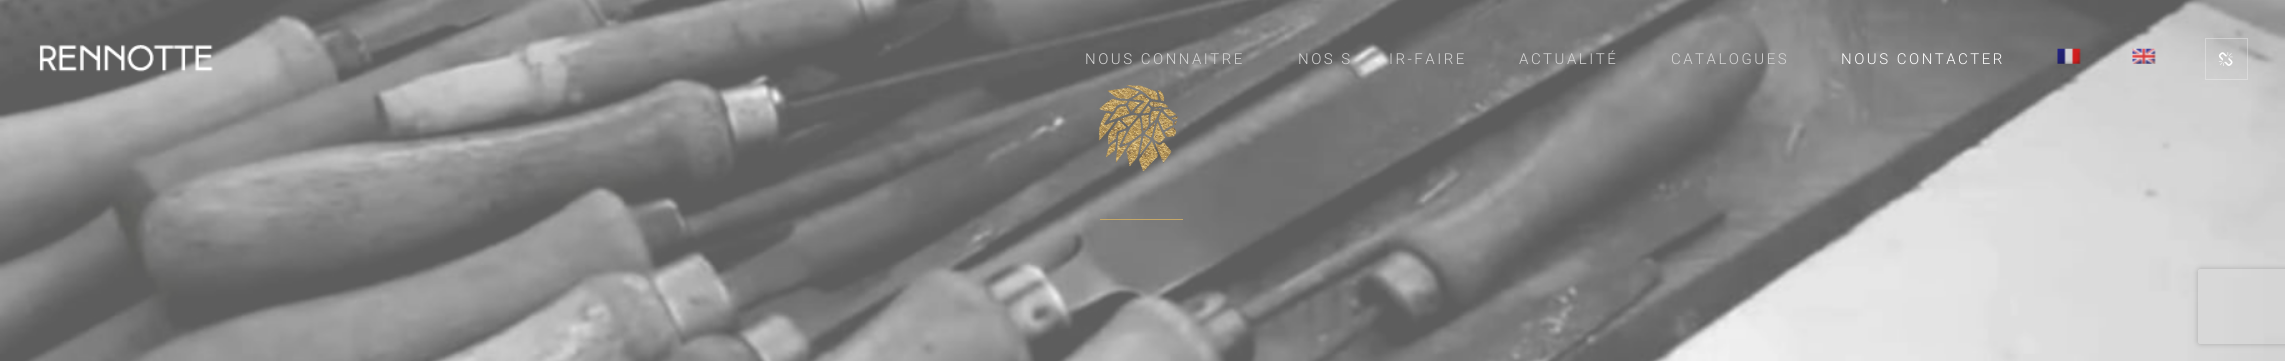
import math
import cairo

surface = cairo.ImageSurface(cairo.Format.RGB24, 2285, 361)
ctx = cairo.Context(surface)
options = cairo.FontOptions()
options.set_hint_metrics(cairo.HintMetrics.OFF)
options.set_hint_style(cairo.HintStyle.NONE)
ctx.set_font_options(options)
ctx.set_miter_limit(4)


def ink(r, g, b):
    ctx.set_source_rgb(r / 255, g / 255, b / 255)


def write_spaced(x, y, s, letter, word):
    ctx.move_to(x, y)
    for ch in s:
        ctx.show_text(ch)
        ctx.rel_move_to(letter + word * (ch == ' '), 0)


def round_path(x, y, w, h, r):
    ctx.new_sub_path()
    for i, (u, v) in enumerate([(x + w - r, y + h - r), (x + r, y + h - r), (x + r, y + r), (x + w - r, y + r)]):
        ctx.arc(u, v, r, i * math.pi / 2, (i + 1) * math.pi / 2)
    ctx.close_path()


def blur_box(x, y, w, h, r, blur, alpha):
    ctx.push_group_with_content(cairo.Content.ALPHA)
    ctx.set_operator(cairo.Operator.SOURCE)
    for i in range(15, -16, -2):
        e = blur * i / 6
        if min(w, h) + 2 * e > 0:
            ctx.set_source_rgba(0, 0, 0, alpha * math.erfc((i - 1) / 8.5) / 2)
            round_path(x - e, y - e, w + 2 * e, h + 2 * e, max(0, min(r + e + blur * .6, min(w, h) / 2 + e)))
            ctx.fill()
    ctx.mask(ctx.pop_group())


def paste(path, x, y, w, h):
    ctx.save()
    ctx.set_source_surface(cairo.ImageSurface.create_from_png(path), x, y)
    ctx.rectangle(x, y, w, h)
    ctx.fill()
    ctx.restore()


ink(255, 255, 255)
ctx.paint()
ctx.save()
ctx.set_fill_rule(cairo.FillRule.EVEN_ODD)
ctx.new_path()
ctx.move_to(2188, 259)
ctx.line_to(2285, 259)
ctx.line_to(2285, 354)
ctx.line_to(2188, 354)
ctx.close_path()
ctx.move_to(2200.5, 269)
ctx.line_to(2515.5, 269)
ctx.curve_to(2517, 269, 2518, 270, 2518, 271.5)
ctx.line_to(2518, 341.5)
ctx.curve_to(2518, 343, 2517, 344, 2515.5, 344)
ctx.line_to(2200.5, 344)
ctx.curve_to(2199, 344, 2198, 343, 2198, 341.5)
ctx.line_to(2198, 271.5)
ctx.curve_to(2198, 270, 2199, 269, 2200.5, 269)
ctx.close_path()
ctx.clip()
ink(128, 128, 128)
blur_box(2198, 269, 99, 75, 2.5, 3, 1)
ctx.restore()
paste("pic1.png", 0, 0, 2285, 361)
paste("pic2.png", 1098, 85, 80, 87)
ctx.set_source_rgba(0.784, 0.663, 0.4, 0.97)
ctx.rectangle(1100, 219, 83, 1)
ctx.fill()
paste("pic3.png", 39, 44, 174, 28)
ctx.select_font_face("Roboto Light")
ctx.set_font_size(15)
ink(213, 213, 213)
write_spaced(1085, 64, "NOUS CONNAITRE", 2.5, 0)
write_spaced(1298, 64, "NOS S", 2.5, 0)
write_spaced(1389, 64, "IR-FAIRE", 2.5, 0)
write_spaced(1519, 64, "ACTUALITÉ", 2.5, 0)
write_spaced(1671, 64, "CATALOGUES", 2.5, 0)
ink(255, 255, 255)
write_spaced(1841, 64, "NOUS CONTACTER", 2.5, 0)
paste("pic4.png", 2057, 48, 24, 16)
paste("pic5.png", 2132, 48, 24, 16)
ctx.rectangle(2205.5, 38.5, 42, 41)
ctx.set_source_rgba(0.949, 0.949, 0.949, 0.4)
ctx.set_line_width(1)
ctx.stroke()
paste("pic6.png", 2218, 52, 15, 14)
surface.write_to_png("screenshot.png")
